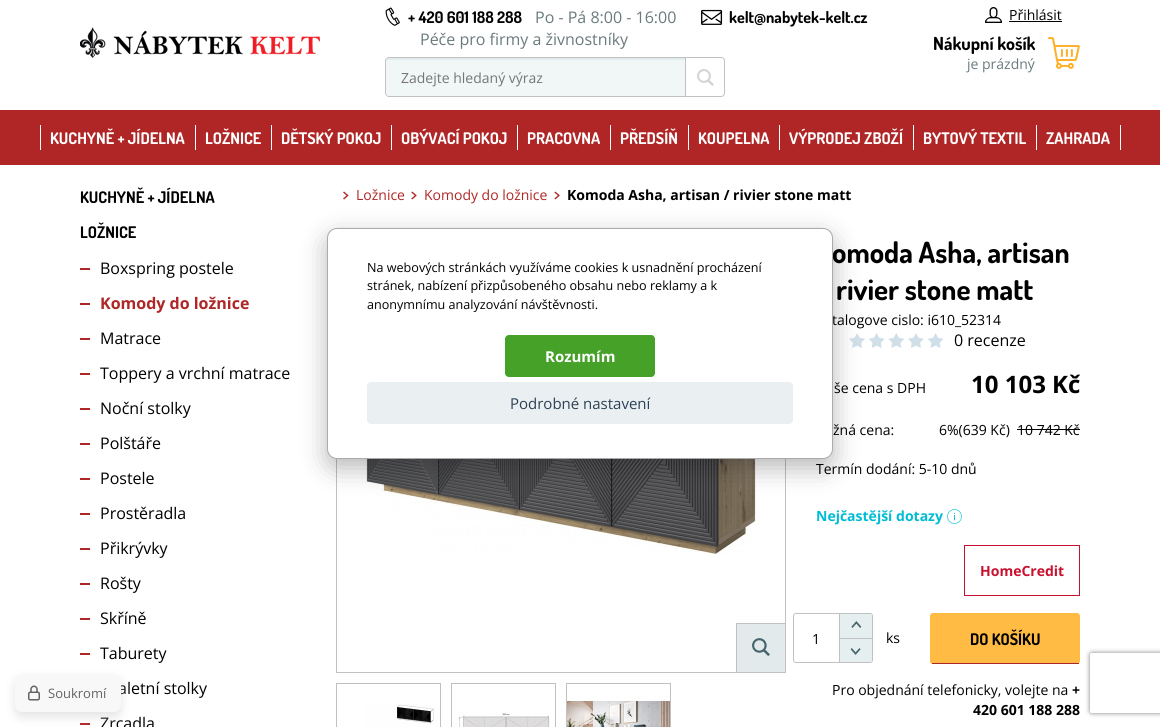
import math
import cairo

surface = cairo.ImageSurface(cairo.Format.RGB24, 1160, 727)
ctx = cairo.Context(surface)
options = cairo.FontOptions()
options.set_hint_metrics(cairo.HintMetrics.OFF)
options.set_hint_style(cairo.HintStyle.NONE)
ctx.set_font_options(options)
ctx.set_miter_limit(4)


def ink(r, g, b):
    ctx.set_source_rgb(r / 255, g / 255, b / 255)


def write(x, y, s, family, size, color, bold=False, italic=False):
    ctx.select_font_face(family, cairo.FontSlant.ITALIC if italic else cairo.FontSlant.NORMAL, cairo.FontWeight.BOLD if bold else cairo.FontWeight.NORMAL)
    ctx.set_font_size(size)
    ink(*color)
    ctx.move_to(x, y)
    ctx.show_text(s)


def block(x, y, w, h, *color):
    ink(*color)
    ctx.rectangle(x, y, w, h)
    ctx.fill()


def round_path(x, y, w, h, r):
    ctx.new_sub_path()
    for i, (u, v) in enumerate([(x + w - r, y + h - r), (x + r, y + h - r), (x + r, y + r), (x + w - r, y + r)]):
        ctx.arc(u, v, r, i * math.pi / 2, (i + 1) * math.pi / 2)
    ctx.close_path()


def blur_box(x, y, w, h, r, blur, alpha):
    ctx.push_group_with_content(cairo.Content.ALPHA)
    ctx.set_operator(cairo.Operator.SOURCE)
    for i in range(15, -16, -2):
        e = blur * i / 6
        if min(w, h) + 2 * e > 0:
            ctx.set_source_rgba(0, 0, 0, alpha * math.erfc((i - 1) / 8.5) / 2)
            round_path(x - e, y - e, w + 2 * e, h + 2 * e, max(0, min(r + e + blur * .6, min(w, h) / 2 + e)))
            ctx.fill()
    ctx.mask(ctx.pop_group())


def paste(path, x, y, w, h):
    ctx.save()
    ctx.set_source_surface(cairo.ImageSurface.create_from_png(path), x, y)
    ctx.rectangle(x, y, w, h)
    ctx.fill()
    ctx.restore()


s1 = dict(family="Dosis", size=16, color=(0, 0, 0), bold=True)
s2 = dict(family="Open Sans", size=16, color=(106, 122, 125))
s3 = dict(family="Open Sans", size=14, color=(117, 117, 117))
s4 = dict(family="Open Sans", size=14, color=(0, 0, 0))
s5 = dict(family="Dosis", size=18, color=(0, 0, 0), bold=True)
s6 = dict(family="Open Sans", size=14, color=(106, 122, 125))
s7 = dict(family="Dosis", size=16, color=(255, 255, 255), bold=True)
s8 = dict(family="Open Sans", size=16, color=(0, 0, 0))
s9 = dict(family="Open Sans", size=16, color=(176, 38, 38), bold=True)
s10 = dict(family="Open Sans", size=14, color=(176, 38, 38))
s11 = dict(family="Open Sans", size=14, color=(0, 0, 0), bold=True)
s12 = dict(family="Dosis", size=29, color=(0, 0, 0), bold=True)
s13 = dict(family="Open Sans", size=24, color=(0, 0, 0), bold=True)
s14 = dict(family="Open Sans", size=14, color=(0, 188, 213), bold=True)
s15 = dict(family="Open Sans", size=14, color=(200, 17, 47), bold=True)
s16 = dict(family="Open Sans", size=12.6, color=(0, 0, 0))
s17 = dict(family="Open Sans", size=15, color=(255, 255, 255), bold=True)
s18 = dict(family="Open Sans", size=15, color=(45, 65, 86))
s19 = dict(family="Open Sans", size=13, color=(100, 100, 100))

ink(255, 255, 255)
ctx.paint()
paste("pic1.png", 80, 27, 240, 31)
paste("pic2.png", 385, 7, 15, 19)
write(408, 23, "+ 420 601 188 288", **s1)
write(535, 23, "Po - Pá 8:00 - 16:00", **s2)
write(420, 45, "Péče pro firmy a živnostníky", **s2)
paste("pic3.png", 701, 9, 22, 16)
write(729, 23, "kelt@nabytek-kelt.cz", **s1)
ink(241, 246, 247)
ctx.new_path()
ctx.move_to(389, 57)
ctx.line_to(685, 57)
ctx.line_to(685, 97)
ctx.line_to(389, 97)
ctx.curve_to(387, 97, 385, 95, 385, 93)
ctx.line_to(385, 61)
ctx.curve_to(385, 59, 387, 57, 389, 57)
ctx.close_path()
ctx.fill()
ink(225, 236, 238)
ctx.new_path()
ctx.move_to(389, 60)
ctx.line_to(685, 60)
ctx.line_to(685, 58)
ctx.line_to(389, 58)
ctx.curve_to(386, 58, 386, 61, 386, 63)
ctx.curve_to(386, 61, 387, 60, 389, 60)
ctx.close_path()
ctx.fill()
ink(193, 193, 193)
ctx.set_fill_rule(cairo.FillRule.EVEN_ODD)
ctx.new_path()
ctx.move_to(389, 57)
ctx.line_to(685, 57)
ctx.line_to(685, 97)
ctx.line_to(389, 97)
ctx.curve_to(387, 97, 385, 95, 385, 93)
ctx.line_to(385, 61)
ctx.curve_to(385, 59, 387, 57, 389, 57)
ctx.close_path()
ctx.move_to(389, 58)
ctx.line_to(685, 58)
ctx.line_to(685, 96)
ctx.line_to(389, 96)
ctx.curve_to(387, 96, 386, 95, 386, 93)
ctx.line_to(386, 61)
ctx.curve_to(386, 59, 387, 58, 389, 58)
ctx.close_path()
ctx.fill()
write(401, 83, "Zadejte hledaný výraz", **s3)
ctx.new_path()
ctx.move_to(685.5, 57.5)
ctx.line_to(721, 57.5)
ctx.curve_to(723, 57.5, 724.5, 59, 724.5, 61)
ctx.line_to(724.5, 93)
ctx.curve_to(724.5, 95, 723, 96.5, 721, 96.5)
ctx.line_to(685.5, 96.5)
ctx.close_path()
ink(193, 193, 193)
ctx.set_line_width(1)
ctx.stroke()
paste("pic4.png", 697, 69, 17, 17)
paste("pic5.png", 985, 7, 17, 16)
write(1009, 20, "Přihlásit", **s4)
block(1009, 21, 53, 1, 0, 0, 0)
write(933, 50, "Nákupní košík", **s5)
paste("pic6.png", 1048, 37, 32, 32)
write(967, 69, "je prázdný", **s6)
block(0, 110, 1160, 55, 176, 38, 38)
block(40, 125, 1, 25, 255, 255, 255)
write(50, 144, "KUCHYNĚ + JÍDELNA", **s7)
block(195, 125, 1, 25, 255, 255, 255)
write(205, 144, "LOŽNICE", **s7)
block(271, 125, 1, 25, 255, 255, 255)
write(281, 144, "DĚTSKÝ POKOJ", **s7)
block(391, 125, 1, 25, 255, 255, 255)
write(401, 144, "OBÝVACÍ POKOJ", **s7)
block(517, 125, 1, 25, 255, 255, 255)
write(527, 144, "PRACOVNA", **s7)
block(610, 125, 1, 25, 255, 255, 255)
write(620, 144, "PŘEDSÍŇ", **s7)
block(688, 125, 1, 25, 255, 255, 255)
write(698, 144, "KOUPELNA", **s7)
block(779, 125, 1, 25, 255, 255, 255)
write(789, 144, "VÝPRODEJ ZBOŽÍ", **s7)
block(913, 125, 1, 25, 255, 255, 255)
write(923, 144, "BYTOVÝ TEXTIL", **s7)
block(1036, 125, 1, 25, 255, 255, 255)
write(1046, 144, "ZAHRADA", **s7)
block(1120, 125, 1, 25, 255, 255, 255)
write(80, 203, "KUCHYNĚ + JÍDELNA", **s1)
write(80, 238, "LOŽNICE", **s1)
block(80, 268, 10, 2, 176, 38, 38)
write(100, 274, "Boxspring postele", **s8)
block(80, 303, 10, 2, 176, 38, 38)
write(100, 309, "Komody do ložnice", **s9)
block(80, 338, 10, 2, 176, 38, 38)
write(100, 344, "Matrace", **s8)
block(80, 373, 10, 2, 176, 38, 38)
write(100, 379, "Toppery a vrchní matrace", **s8)
block(80, 408, 10, 2, 176, 38, 38)
write(100, 414, "Noční stolky", **s8)
block(80, 443, 10, 2, 176, 38, 38)
write(100, 449, "Polštáře", **s8)
block(80, 478, 10, 2, 176, 38, 38)
write(100, 484, "Postele", **s8)
block(80, 513, 10, 2, 176, 38, 38)
write(100, 519, "Prostěradla", **s8)
block(80, 548, 10, 2, 176, 38, 38)
write(100, 554, "Přikrývky", **s8)
block(80, 583, 10, 2, 176, 38, 38)
write(100, 589, "Rošty", **s8)
block(80, 618, 10, 2, 176, 38, 38)
write(100, 624, "Skříně", **s8)
block(80, 653, 10, 2, 176, 38, 38)
write(100, 659, "Taburety", **s8)
write(118, 694, "aletní stolky", **s8)
block(80, 723, 10, 2, 176, 38, 38)
write(100, 729, "Zrcadla", **s8)
paste("pic7.png", 343, 191, 6, 9)
write(356, 200, "Ložnice", **s10)
paste("pic8.png", 411, 191, 6, 9)
write(424, 200, "Komody do ložnice", **s10)
paste("pic9.png", 554, 191, 6, 9)
write(567, 200, "Komoda Asha, artisan / rivier stone matt", **s11)
ctx.rectangle(336.5, 233.5, 449, 439)
ink(193, 193, 193)
ctx.stroke()
paste("pic10.png", 361, 459, 398, 95)
block(737, 624, 48, 48, 227, 234, 236)
block(736, 623, 49, 1, 193, 193, 193)
block(736, 623, 1, 49, 193, 193, 193)
paste("pic11.png", 752, 638, 18, 18)
ctx.rectangle(336.5, 683.5, 104, 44)
ctx.stroke()
paste("pic12.png", 365, 704, 74, 23)
ctx.rectangle(451.5, 683.5, 104, 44)
ctx.stroke()
paste("pic13.png", 456, 712, 94, 15)
ctx.rectangle(566.5, 683.5, 104, 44)
ctx.stroke()
paste("pic14.png", 567, 695, 103, 32)
write(832, 263, "omoda Asha, artisan", **s12)
write(836, 300, "rivier stone matt", **s12)
write(832, 325, "talogove cislo: i610_52314", **s4)
paste("pic15.png", 849, 333, 94, 15)
write(954, 346, "0 recenze", **s8)
write(834, 393, "še cena s DPH", **s4)
write(971, 393, "10 103 Kč", **s13)
write(833, 435, "žná cena:", **s4)
write(939, 435, "6%(639 Kč)", **s4)
write(1017, 435, "10 742 Kč", **s4)
block(1017, 429, 63, 1, 0, 0, 0)
write(816, 474, "Termín dodání: 5-10 dnů", **s4)
write(816, 521, "Nejčastější dotazy", **s14)
paste("pic16.png", 947, 509, 15, 15)
ctx.rectangle(964.5, 545.5, 115, 50)
ink(200, 17, 47)
ctx.stroke()
write(980, 576, "HomeCredit", **s15)
round_path(793.5, 613.5, 79, 49, 2.5)
ink(193, 193, 193)
ctx.stroke()
ink(255, 255, 255)
ctx.new_path()
ctx.move_to(796, 614)
ctx.line_to(840, 614)
ctx.line_to(840, 662)
ctx.line_to(796, 662)
ctx.curve_to(795, 662, 794, 661, 794, 660)
ctx.line_to(794, 616)
ctx.curve_to(794, 615, 795, 614, 796, 614)
ctx.close_path()
ctx.fill()
block(839, 614, 1, 48, 193, 193, 193)
write(812, 644, "1", **s4)
ink(229, 239, 240)
ctx.new_path()
ctx.move_to(840, 614)
ctx.line_to(870, 614)
ctx.curve_to(871, 614, 872, 615, 872, 616)
ctx.line_to(872, 639)
ctx.line_to(840, 639)
ctx.close_path()
ctx.fill()
block(840, 638, 32, 1, 193, 193, 193)
paste("pic17.png", 851, 621, 11, 7)
ink(229, 239, 240)
ctx.new_path()
ctx.move_to(840, 639)
ctx.line_to(872, 639)
ctx.line_to(872, 660)
ctx.curve_to(872, 661, 871, 662, 870, 662)
ctx.line_to(840, 662)
ctx.close_path()
ctx.fill()
paste("pic18.png", 850, 648, 11, 7)
write(886, 643, "ks", **s4)
ink(255, 187, 68)
round_path(930, 613, 150, 51, 3)
ctx.fill()
block(932, 663, 147, 1, 176, 38, 38)
write(970, 645, "DO KOŠÍKU", **s1)
write(832, 695, "Pro objednání telefonicky, volejte na", **s4)
write(1072, 695, "+", **s11)
write(973, 715, "420 601 188 288", **s11)
ink(2, 2, 3)
blur_box(327, 237, 506, 231, 10, 13, 0.28)
ink(255, 255, 255)
round_path(327.5, 228.5, 505, 230, 9.5)
ctx.fill_preserve()
ink(170, 170, 170)
ctx.stroke()
write(367, 272, "Na webových stránkách využíváme cookies k usnadnění procházení", **s16)
write(367, 290, "stránek, nabízení přizpůsobeného obsahu nebo reklamy a k", **s16)
write(367, 309, "anonymnímu analyzování návštěvnosti.", **s16)
ink(70, 161, 40)
round_path(505, 335, 150, 42, 4)
ctx.fill()
write(545, 362, "Rozumím", **s17)
ink(234, 239, 242)
round_path(367, 382, 426, 42, 4)
ctx.fill()
write(510, 409, "Podrobné nastavení", **s18)
ink(200, 200, 200)
blur_box(15, 679, 106, 38, 7, 5, 0.5)
ink(248, 248, 248)
round_path(15, 674, 106, 38, 7)
ctx.fill()
paste("pic19.png", 28, 685, 12, 16)
write(48, 698, "Soukromí", **s19)
ctx.save()
ctx.new_path()
ctx.move_to(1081, 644)
ctx.line_to(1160, 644)
ctx.line_to(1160, 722)
ctx.line_to(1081, 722)
ctx.close_path()
ctx.move_to(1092, 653)
ctx.line_to(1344, 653)
ctx.curve_to(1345, 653, 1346, 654, 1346, 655)
ctx.line_to(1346, 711)
ctx.curve_to(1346, 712, 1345, 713, 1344, 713)
ctx.line_to(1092, 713)
ctx.curve_to(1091, 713, 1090, 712, 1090, 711)
ctx.line_to(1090, 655)
ctx.curve_to(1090, 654, 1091, 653, 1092, 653)
ctx.close_path()
ctx.clip()
ink(128, 128, 128)
blur_box(1090, 653, 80, 60, 2, 2.5, 1)
ctx.restore()
surface.write_to_png("screenshot.png")
